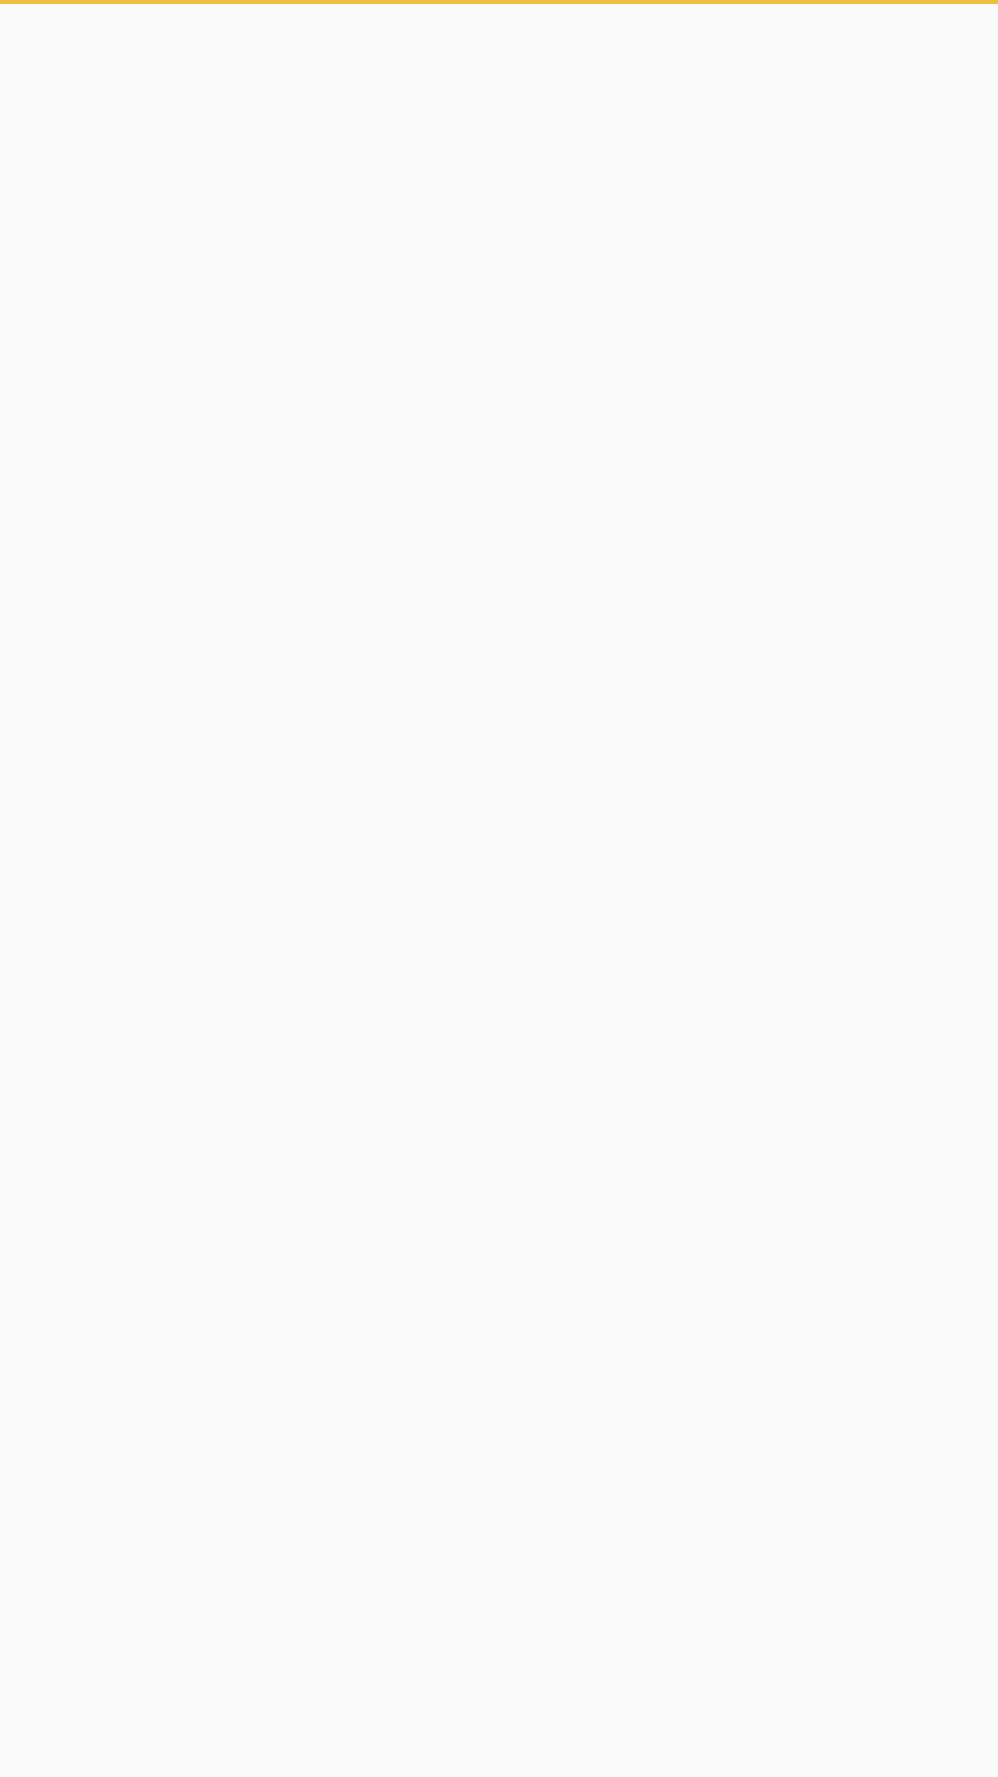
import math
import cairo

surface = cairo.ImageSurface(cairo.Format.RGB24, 998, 1777)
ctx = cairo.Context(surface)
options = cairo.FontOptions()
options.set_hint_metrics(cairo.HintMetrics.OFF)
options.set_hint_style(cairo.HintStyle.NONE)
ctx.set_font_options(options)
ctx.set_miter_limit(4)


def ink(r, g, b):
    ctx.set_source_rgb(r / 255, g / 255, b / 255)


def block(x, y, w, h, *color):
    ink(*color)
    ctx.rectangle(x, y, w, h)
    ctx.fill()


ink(235, 192, 63)
ctx.paint()
block(0, 4, 998, 1773, 250, 250, 250)
surface.write_to_png("screenshot.png")
